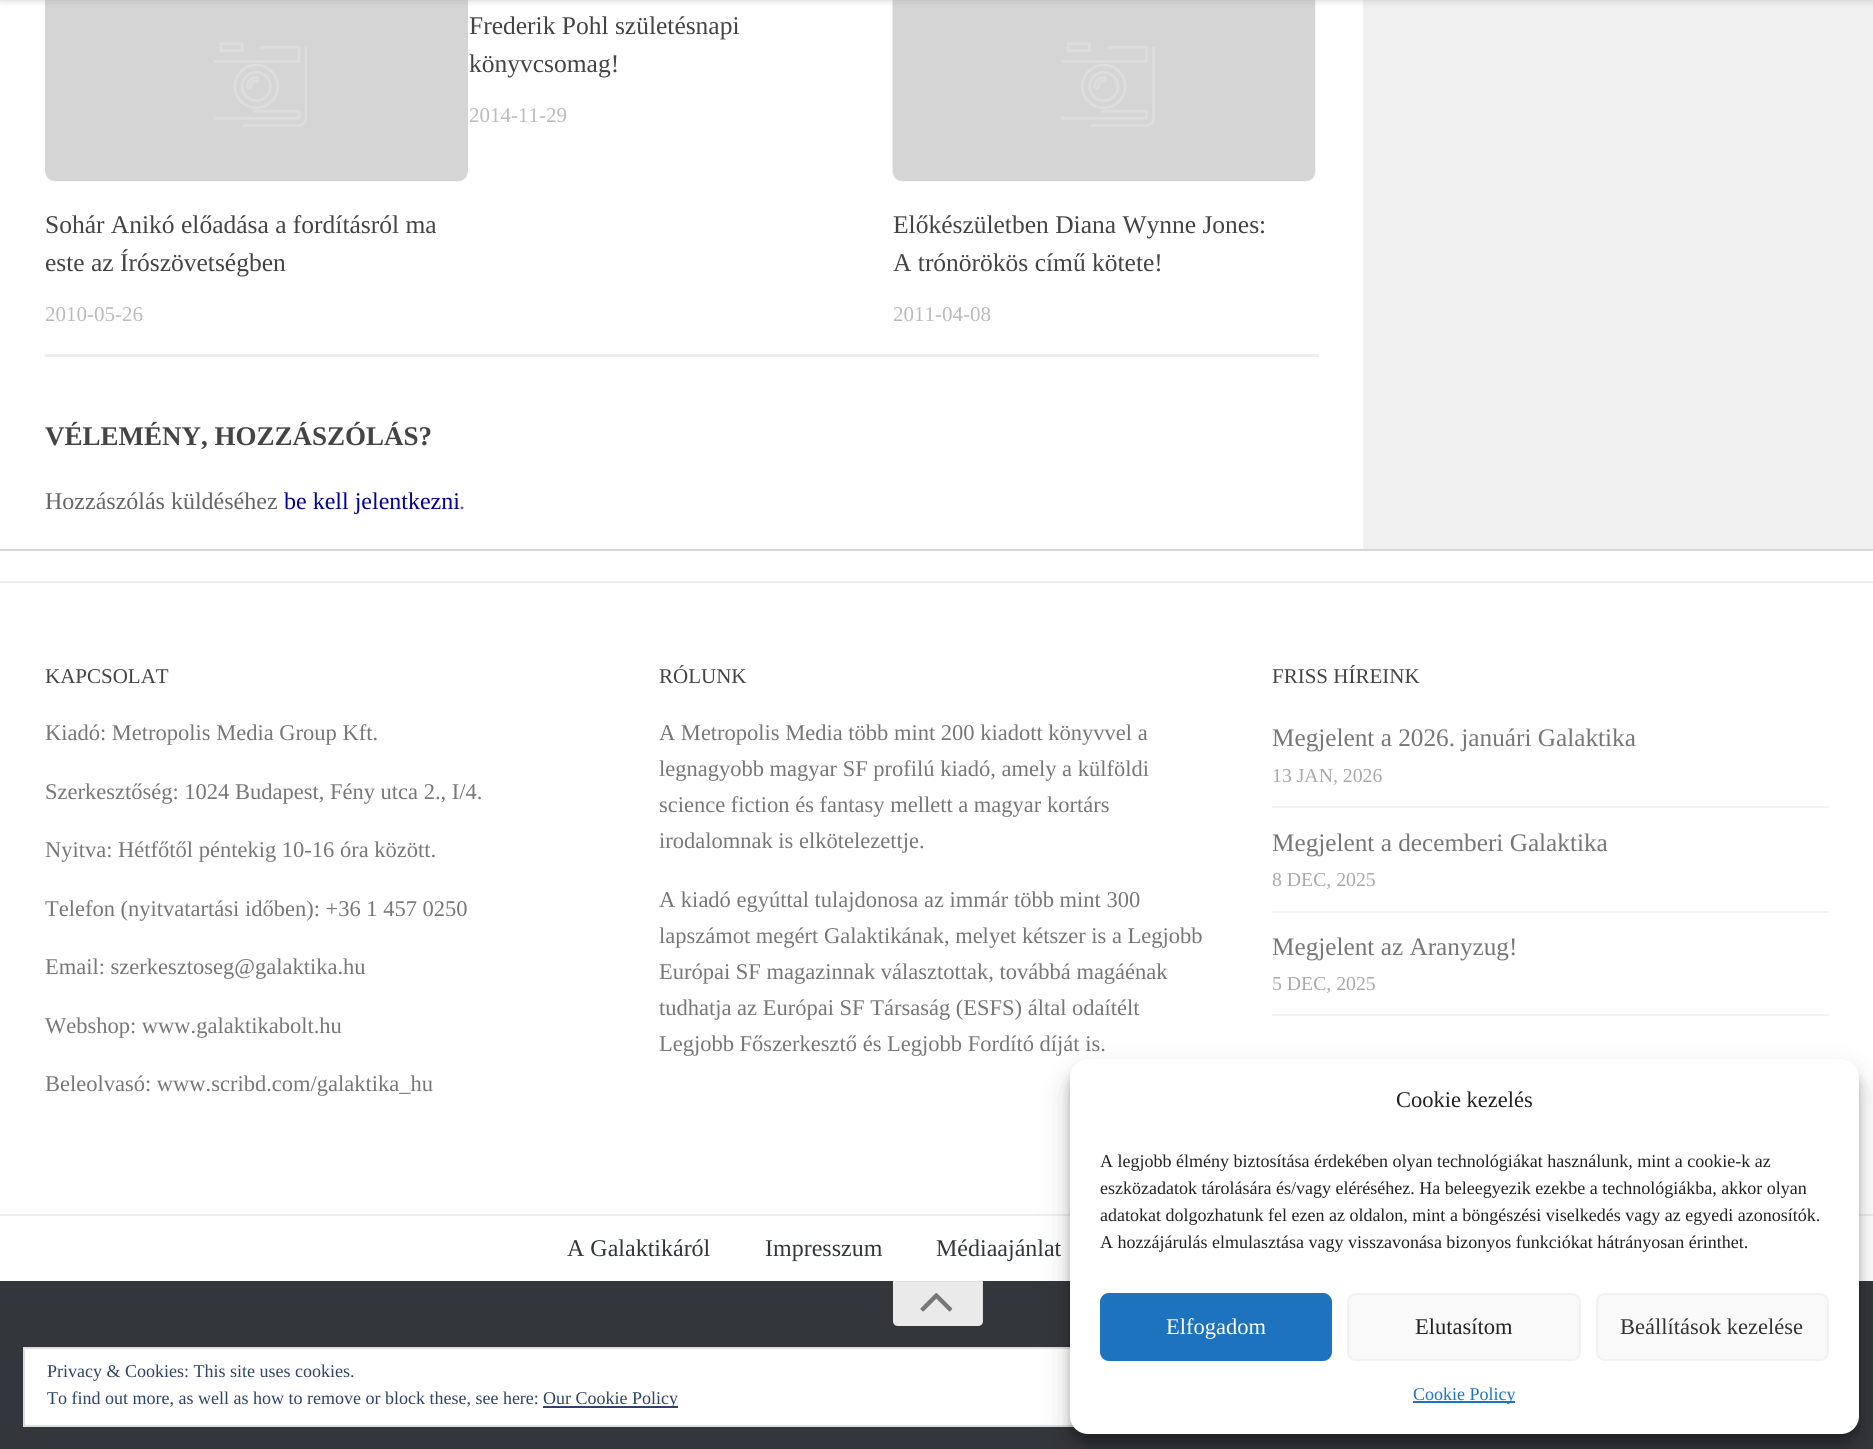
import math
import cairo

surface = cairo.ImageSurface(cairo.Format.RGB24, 1873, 1449)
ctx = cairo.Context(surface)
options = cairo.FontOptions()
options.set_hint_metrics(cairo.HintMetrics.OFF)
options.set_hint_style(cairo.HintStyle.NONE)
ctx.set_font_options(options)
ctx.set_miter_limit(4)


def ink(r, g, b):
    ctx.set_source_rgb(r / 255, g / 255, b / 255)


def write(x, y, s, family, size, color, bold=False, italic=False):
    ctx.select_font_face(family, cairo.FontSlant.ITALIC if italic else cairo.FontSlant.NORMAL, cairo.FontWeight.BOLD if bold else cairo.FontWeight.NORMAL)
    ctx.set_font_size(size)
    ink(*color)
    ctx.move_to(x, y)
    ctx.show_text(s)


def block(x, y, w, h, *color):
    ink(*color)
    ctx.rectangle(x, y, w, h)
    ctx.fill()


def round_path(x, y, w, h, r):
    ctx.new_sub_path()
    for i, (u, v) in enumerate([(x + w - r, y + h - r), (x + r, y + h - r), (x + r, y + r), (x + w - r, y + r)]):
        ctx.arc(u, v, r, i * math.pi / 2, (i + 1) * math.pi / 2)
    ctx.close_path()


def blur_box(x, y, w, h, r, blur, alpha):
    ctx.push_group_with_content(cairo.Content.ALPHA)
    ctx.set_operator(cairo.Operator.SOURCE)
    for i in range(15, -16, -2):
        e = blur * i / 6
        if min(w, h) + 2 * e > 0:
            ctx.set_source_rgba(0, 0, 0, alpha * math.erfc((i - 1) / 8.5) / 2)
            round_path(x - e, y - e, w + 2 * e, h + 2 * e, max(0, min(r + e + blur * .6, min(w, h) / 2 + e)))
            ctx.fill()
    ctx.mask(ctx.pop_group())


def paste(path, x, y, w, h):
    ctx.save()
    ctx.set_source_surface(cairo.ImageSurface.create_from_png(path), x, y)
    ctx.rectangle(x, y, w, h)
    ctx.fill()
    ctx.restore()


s1 = dict(family="Liberation Serif", size=25.5, color=(68, 68, 68))
s2 = dict(family="Liberation Serif", size=21, color=(187, 187, 187))
s3 = dict(family="Liberation Serif", size=27, color=(68, 68, 68), bold=True)
s4 = dict(family="Liberation Serif", size=24, color=(102, 102, 102))
s5 = dict(family="Liberation Serif", size=24, color=(0, 0, 148))
s6 = dict(family="Liberation Serif", size=21, color=(68, 68, 68))
s7 = dict(family="Liberation Serif", size=22.5, color=(119, 119, 119))
s8 = dict(family="Liberation Serif", size=25.25, color=(119, 119, 119))
s9 = dict(family="Liberation Serif", size=19.75, color=(170, 170, 170))
s10 = dict(family="Liberation Serif", size=24, color=(51, 54, 59))
s11 = dict(family="Liberation Serif", size=18, color=(46, 68, 103))
s12 = dict(family="Liberation Serif", size=22.5, color=(34, 34, 34))
s13 = dict(family="Liberation Serif", size=18, color=(34, 34, 34))
s14 = dict(family="Liberation Serif", size=22.5, color=(255, 255, 255))
s15 = dict(family="Liberation Serif", size=22.5, color=(51, 51, 51))
s16 = dict(family="Liberation Serif", size=18, color=(30, 115, 190))

ink(234, 234, 234)
ctx.paint()
ink(0, 0, 0)
blur_box(0, -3, 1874, 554, 0, 1, 0.1)
block(0, 0, 1363, 549, 255, 255, 255)
block(1363, 0, 510, 549, 240, 240, 240)
paste("pic1.png", 45, 0, 423, 182)
paste("pic3.png", 892, 0, 424, 182)
ctx.set_source_rgba(1, 1, 1, 0.15)
ctx.new_path()
ctx.move_to(0, 0)
ctx.line_to(0, 2)
ctx.line_to(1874, 2)
ctx.line_to(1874, -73)
ctx.line_to(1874, 0)
ctx.close_path()
ctx.fill()
ink(0, 0, 0)
blur_box(0, -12, 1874, 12, 0, 4, 0.2)
block(45, 354, 1274, 3, 238, 238, 238)
write(469, 34, "Frederik Pohl születésnapi", **s1)
write(469, 72, "könyvcsomag!", **s1)
write(469, 122, "2014-11-29", **s2)
paste("pic2.png", 214, 42, 93, 85)
write(45, 233, "Sohár Anikó előadása a fordításról ma", **s1)
write(45, 271, "este az Írószövetségben", **s1)
write(45, 321, "2010-05-26", **s2)
paste("pic4.png", 1061, 42, 94, 85)
write(893, 233, "Előkészületben Diana Wynne Jones:", **s1)
write(893, 271, "A trónörökös című kötete!", **s1)
write(893, 321, "2011-04-08", **s2)
write(45, 445, "VÉLEMÉNY, HOZZÁSZÓLÁS?", **s3)
write(45, 509, "Hozzászólás küldéséhez", **s4)
write(284, 509, "be kell jelentkezni", **s5)
write(459, 509, ".", **s4)
block(0, 551, 1873, 730, 255, 255, 255)
block(0, 581, 1873, 2, 238, 238, 238)
write(45, 683, "KAPCSOLAT", **s6)
write(45, 740, "Kiadó: Metropolis Media Group Kft.", **s7)
write(45, 799, "Szerkesztőség: 1024 Budapest, Fény utca 2., I/4.", **s7)
write(45, 857, "Nyitva: Hétfőtől péntekig 10-16 óra között.", **s7)
write(45, 916, "Telefon (nyitvatartási időben): +36 1 457 0250", **s7)
write(45, 974, "Email: szerkesztoseg@galaktika.hu", **s7)
write(45, 1033, "Webshop: www.galaktikabolt.hu", **s7)
write(45, 1091, "Beleolvasó: www.scribd.com/galaktika_hu", **s7)
write(659, 683, "RÓLUNK", **s6)
write(659, 740, "A Metropolis Media több mint 200 kiadott könyvvel a", **s7)
write(659, 776, "legnagyobb magyar SF profilú kiadó, amely a külföldi", **s7)
write(659, 812, "science fiction és fantasy mellett a magyar kortárs", **s7)
write(659, 848, "irodalomnak is elkötelezettje.", **s7)
write(659, 907, "A kiadó egyúttal tulajdonosa az immár több mint 300", **s7)
write(659, 943, "lapszámot megért Galaktikának, melyet kétszer is a Legjobb", **s7)
write(659, 979, "Európai SF magazinnak választottak, továbbá magáénak", **s7)
write(659, 1015, "tudhatja az Európai SF Társaság (ESFS) által odaítélt", **s7)
write(659, 1051, "Legjobb Főszerkesztő és Legjobb Fordító díját is.", **s7)
write(1272, 683, "FRISS HÍREINK", **s6)
block(1272, 806, 557, 2, 242, 242, 242)
write(1272, 746, "Megjelent a 2026. januári Galaktika", **s8)
write(1272, 782, "13 JAN, 2026", **s9)
block(1272, 911, 557, 2, 242, 242, 242)
write(1272, 851, "Megjelent a decemberi Galaktika", **s8)
write(1272, 886, "8 DEC, 2025", **s9)
block(1272, 1014, 557, 2, 242, 242, 242)
write(1272, 955, "Megjelent az Aranyzug!", **s8)
write(1272, 990, "5 DEC, 2025", **s9)
block(0, 1214, 1873, 2, 238, 238, 238)
write(567, 1256, "A Galaktikáról", **s10)
write(765, 1256, "Impresszum", **s10)
write(936, 1256, "Médiaajánlat", **s10)
block(0, 1281, 1873, 168, 51, 54, 59)
ink(234, 234, 234)
ctx.new_path()
ctx.move_to(893, 1281)
ctx.line_to(983, 1281)
ctx.line_to(983, 1321)
ctx.curve_to(983, 1324, 981, 1326, 978, 1326)
ctx.line_to(898, 1326)
ctx.curve_to(895, 1326, 893, 1324, 893, 1321)
ctx.close_path()
ctx.fill()
ctx.set_source_rgba(0, 0, 0, 0.05)
ctx.new_path()
ctx.move_to(893, 1281)
ctx.line_to(893, 1282)
ctx.line_to(982, 1282)
ctx.line_to(982, 1324)
ctx.curve_to(983, 1323, 983, 1322, 983, 1321)
ctx.line_to(983, 1281)
ctx.close_path()
ctx.fill()
paste("pic5.png", 920, 1293, 33, 19)
block(25, 1349, 1048, 76, 255, 255, 255)
ctx.rectangle(24, 1348, 1826, 78)
ink(222, 222, 222)
ctx.stroke()
write(47, 1377, "Privacy & Cookies: This site uses cookies.", **s11)
write(47, 1404, "To find out more, as well as how to remove or block these, see here:", **s11)
block(543, 1406, 135, 2, 46, 68, 103)
write(543, 1404, "Our Cookie Policy", **s11)
ink(0, 0, 0)
blur_box(1070, 1068, 789, 375, 18, 4.5, 0.23)
blur_box(1070, 1074, 789, 375, 18, 15, 0.19)
ink(255, 255, 255)
round_path(1070, 1059, 789, 375, 18)
ctx.fill()
write(1396, 1107, "Cookie kezelés", **s12)
write(1100, 1167, "A legjobb élmény biztosítása érdekében olyan technológiákat használunk, mint a cookie-k az", **s13)
write(1100, 1194, "eszközadatok tárolására és/vagy eléréséhez. Ha beleegyezik ezekbe a technológiákba, akkor olyan", **s13)
write(1100, 1221, "adatokat dolgozhatunk fel ezen az oldalon, mint a böngészési viselkedés vagy az egyedi azonosítók.", **s13)
write(1100, 1248, "A hozzájárulás elmulasztása vagy visszavonása bizonyos funkciókat hátrányosan érinthet.", **s13)
ink(30, 115, 190)
round_path(1101, 1294, 230, 66, 8)
ctx.fill_preserve()
ctx.stroke()
write(1166, 1334, "Elfogadom", **s14)
ink(249, 249, 249)
round_path(1348, 1294, 232, 66, 8)
ctx.fill_preserve()
ink(242, 242, 242)
ctx.stroke()
write(1415, 1334, "Elutasítom", **s12)
ink(249, 249, 249)
round_path(1597, 1294, 231, 66, 8)
ctx.fill_preserve()
ink(242, 242, 242)
ctx.stroke()
write(1620, 1334, "Beállítások kezelése", **s15)
block(1413, 1401, 102, 2, 30, 115, 190)
write(1413, 1400, "Cookie Policy", **s16)
surface.write_to_png("screenshot.png")
